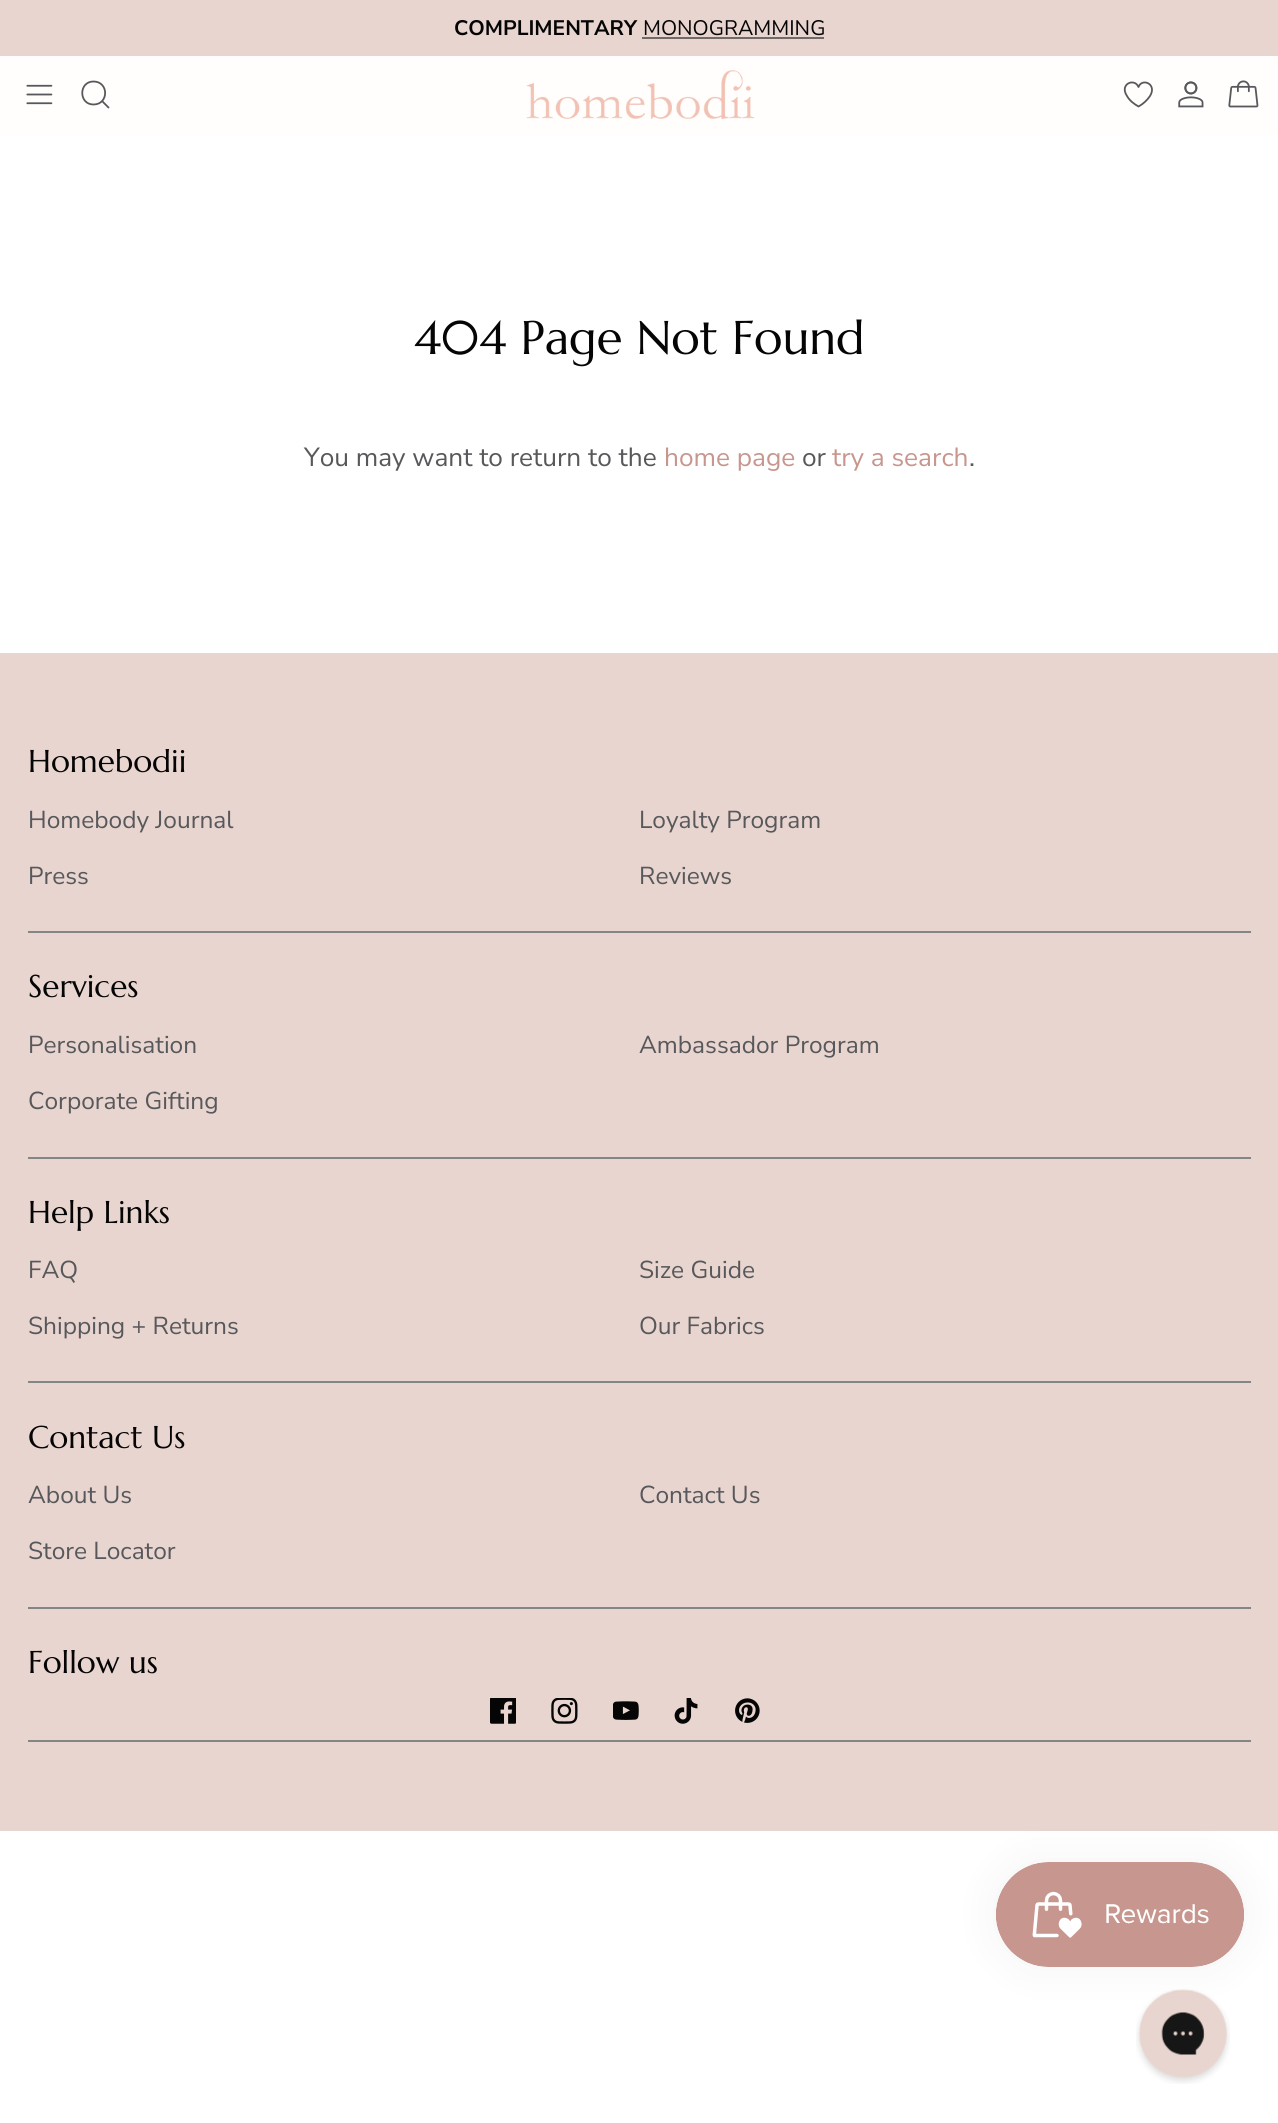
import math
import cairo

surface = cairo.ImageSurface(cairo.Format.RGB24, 1278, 2123)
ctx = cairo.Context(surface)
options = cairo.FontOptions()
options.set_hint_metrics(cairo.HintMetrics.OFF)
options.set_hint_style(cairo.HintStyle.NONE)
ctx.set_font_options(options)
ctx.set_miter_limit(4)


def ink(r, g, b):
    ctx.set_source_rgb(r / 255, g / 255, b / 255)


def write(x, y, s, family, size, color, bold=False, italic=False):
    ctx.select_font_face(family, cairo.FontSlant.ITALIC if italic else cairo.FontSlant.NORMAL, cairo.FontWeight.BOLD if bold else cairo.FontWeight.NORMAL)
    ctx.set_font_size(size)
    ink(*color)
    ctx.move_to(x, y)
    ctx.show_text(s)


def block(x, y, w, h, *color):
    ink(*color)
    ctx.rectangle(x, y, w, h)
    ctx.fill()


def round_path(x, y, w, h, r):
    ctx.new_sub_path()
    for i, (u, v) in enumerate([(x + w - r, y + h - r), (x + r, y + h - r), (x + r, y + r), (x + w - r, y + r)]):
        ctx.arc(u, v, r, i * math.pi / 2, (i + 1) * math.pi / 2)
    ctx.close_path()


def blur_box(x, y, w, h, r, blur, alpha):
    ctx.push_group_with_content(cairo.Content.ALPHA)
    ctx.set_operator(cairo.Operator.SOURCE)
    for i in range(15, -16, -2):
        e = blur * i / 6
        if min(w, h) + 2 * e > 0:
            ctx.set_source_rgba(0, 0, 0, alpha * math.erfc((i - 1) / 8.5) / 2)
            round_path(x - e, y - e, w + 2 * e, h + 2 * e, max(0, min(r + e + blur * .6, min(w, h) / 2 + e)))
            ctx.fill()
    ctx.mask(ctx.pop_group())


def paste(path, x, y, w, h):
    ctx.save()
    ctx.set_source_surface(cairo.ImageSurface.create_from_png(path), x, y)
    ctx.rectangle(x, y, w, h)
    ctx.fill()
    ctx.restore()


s1 = dict(family="Nunito Sans", size=21, color=(5, 5, 5), bold=True)
s2 = dict(family="Nunito Sans", size=21, color=(5, 5, 5))
s3 = dict(family="Marcellus", size=47.25, color=(5, 5, 5))
s4 = dict(family="Nunito Sans", size=26.25, color=(87, 88, 91))
s5 = dict(family="Nunito Sans", size=26.25, color=(199, 150, 142))
s6 = dict(family="Marcellus", size=31.5, color=(5, 5, 5))
s7 = dict(family="Nunito Sans", size=24.5, color=(87, 88, 91))

ink(255, 255, 255)
ctx.paint()
block(0, 0, 1278, 56, 233, 213, 207)
write(454, 35, "COMPLIMENTARY", **s1)
write(643, 35, "MONOGRAMMING", **s2)
block(642, 37, 182, 2, 113, 105, 103)
block(0, 56, 1278, 79, 255, 254, 252)
paste("pic1.png", 26, 84, 27, 21)
ctx.new_path()
ctx.move_to(93.5, 104.5)
ctx.curve_to(109, 104.5, 109, 81.5, 93.5, 81.5)
ctx.curve_to(78.5, 81.5, 78.5, 104.5, 93.5, 104.5)
ctx.close_path()
ctx.move_to(102, 101)
ctx.line_to(108.5, 107.5)
ink(87, 88, 91)
ctx.set_line_width(1.8)
ctx.set_line_cap(cairo.LineCap.ROUND)
ctx.set_line_join(cairo.LineJoin.ROUND)
ctx.stroke()
paste("pic2.png", 526, 70, 229, 49)
ctx.new_path()
ctx.move_to(1138.5, 106.5)
ctx.curve_to(1134, 104, 1129.5, 100.5, 1127, 96)
ctx.curve_to(1119, 84, 1134.5, 77.5, 1138.5, 87)
ctx.curve_to(1142, 77.5, 1157.5, 84, 1150, 96)
ctx.curve_to(1147, 100.5, 1143, 104, 1138.5, 106.5)
ctx.close_path()
ctx.stroke()
paste("pic3.png", 1178, 81, 26, 27)
paste("pic4.png", 1228, 80, 31, 28)
write(414, 354, "404 Page Not Found", **s3)
write(304, 466, "You may want to return to the", **s4)
write(664, 466, "home page", **s5)
write(802, 466, "or", **s4)
write(832, 466, "try a search", **s5)
write(969, 466, ".", **s4)
block(0, 653, 1278, 1178, 233, 213, 207)
block(28, 931, 1223, 2, 133, 133, 133)
write(28, 772, "Homebodii", **s6)
write(28, 828, "Homebody Journal", **s7)
write(639, 828, "Loyalty Program", **s7)
write(28, 884, "Press", **s7)
write(639, 884, "Reviews", **s7)
block(28, 1157, 1223, 2, 133, 133, 133)
write(28, 997, "Services", **s6)
write(28, 1053, "Personalisation", **s7)
write(639, 1053, "Ambassador Program", **s7)
write(28, 1109, "Corporate Gifting", **s7)
block(28, 1381, 1223, 2, 133, 133, 133)
write(28, 1223, "Help Links", **s6)
write(28, 1278, "FAQ", **s7)
write(639, 1278, "Size Guide", **s7)
write(28, 1334, "Shipping + Returns", **s7)
write(639, 1334, "Our Fabrics", **s7)
block(28, 1607, 1223, 2, 133, 133, 133)
write(28, 1448, "Contact Us", **s6)
write(28, 1503, "About Us", **s7)
write(639, 1503, "Contact Us", **s7)
write(28, 1559, "Store Locator", **s7)
block(28, 1740, 1223, 2, 133, 133, 133)
write(28, 1673, "Follow us", **s6)
paste("pic5.png", 490, 1698, 26, 26)
paste("pic6.png", 551, 1698, 27, 26)
paste("pic7.png", 613, 1701, 26, 19)
paste("pic8.png", 674, 1698, 24, 26)
paste("pic9.png", 735, 1698, 25, 25)
paste("pic11.png", 1136, 1989, 94, 95)
ink(0, 0, 0)
blur_box(996, 1862, 248, 105, 52.5, 22, 0.05)
paste("pic10.png", 996, 1862, 248, 105)
surface.write_to_png("screenshot.png")
